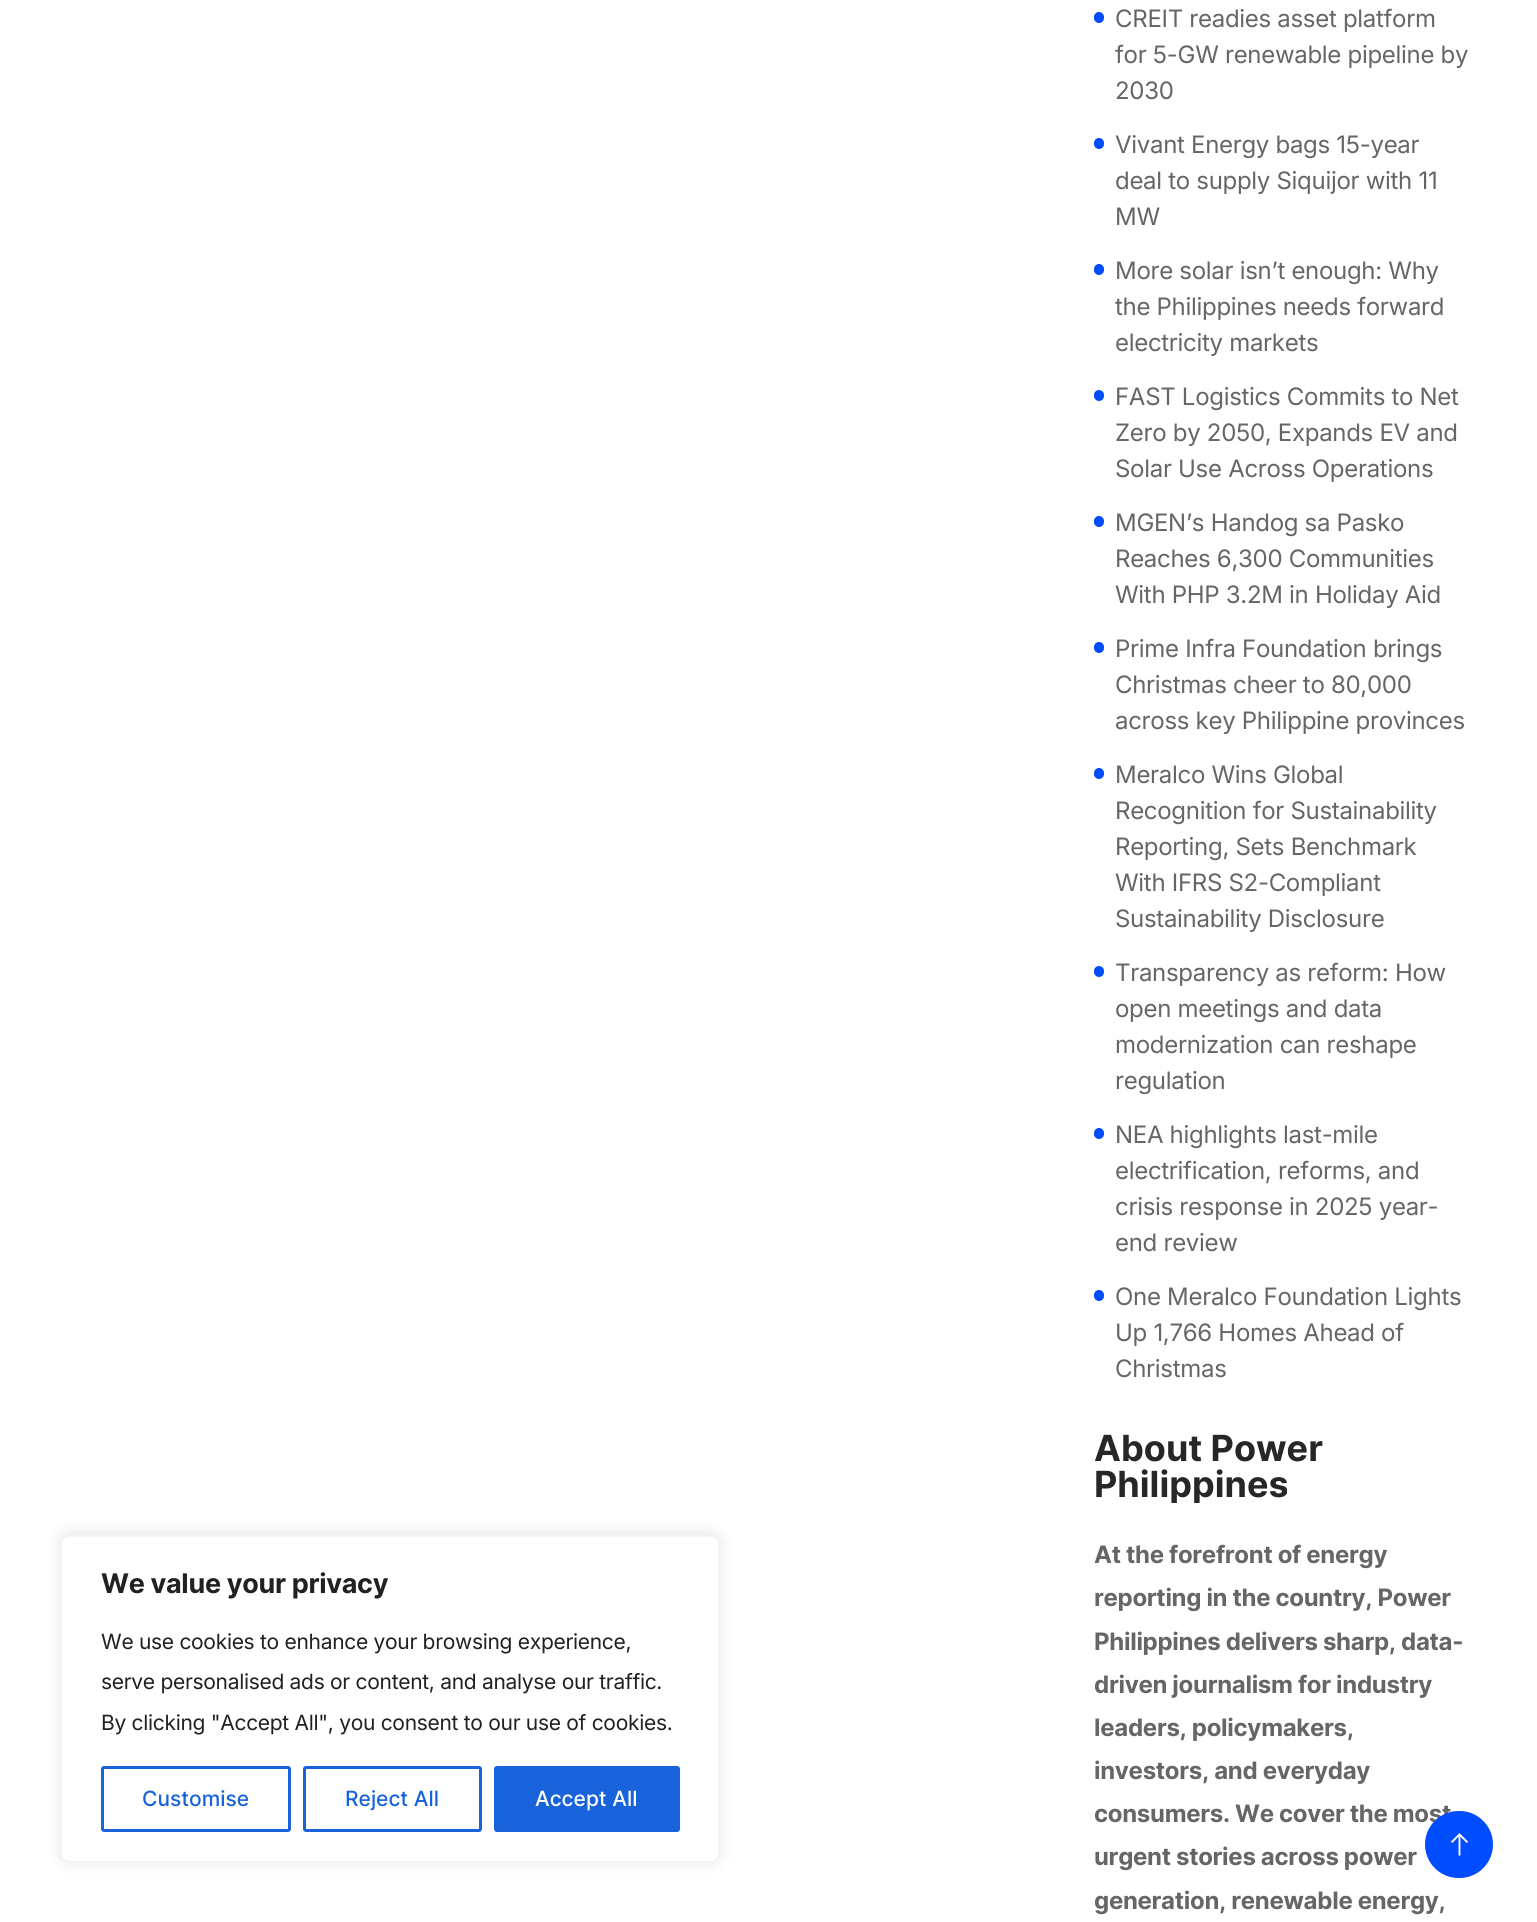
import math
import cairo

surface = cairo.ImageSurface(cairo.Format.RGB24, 1537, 1922)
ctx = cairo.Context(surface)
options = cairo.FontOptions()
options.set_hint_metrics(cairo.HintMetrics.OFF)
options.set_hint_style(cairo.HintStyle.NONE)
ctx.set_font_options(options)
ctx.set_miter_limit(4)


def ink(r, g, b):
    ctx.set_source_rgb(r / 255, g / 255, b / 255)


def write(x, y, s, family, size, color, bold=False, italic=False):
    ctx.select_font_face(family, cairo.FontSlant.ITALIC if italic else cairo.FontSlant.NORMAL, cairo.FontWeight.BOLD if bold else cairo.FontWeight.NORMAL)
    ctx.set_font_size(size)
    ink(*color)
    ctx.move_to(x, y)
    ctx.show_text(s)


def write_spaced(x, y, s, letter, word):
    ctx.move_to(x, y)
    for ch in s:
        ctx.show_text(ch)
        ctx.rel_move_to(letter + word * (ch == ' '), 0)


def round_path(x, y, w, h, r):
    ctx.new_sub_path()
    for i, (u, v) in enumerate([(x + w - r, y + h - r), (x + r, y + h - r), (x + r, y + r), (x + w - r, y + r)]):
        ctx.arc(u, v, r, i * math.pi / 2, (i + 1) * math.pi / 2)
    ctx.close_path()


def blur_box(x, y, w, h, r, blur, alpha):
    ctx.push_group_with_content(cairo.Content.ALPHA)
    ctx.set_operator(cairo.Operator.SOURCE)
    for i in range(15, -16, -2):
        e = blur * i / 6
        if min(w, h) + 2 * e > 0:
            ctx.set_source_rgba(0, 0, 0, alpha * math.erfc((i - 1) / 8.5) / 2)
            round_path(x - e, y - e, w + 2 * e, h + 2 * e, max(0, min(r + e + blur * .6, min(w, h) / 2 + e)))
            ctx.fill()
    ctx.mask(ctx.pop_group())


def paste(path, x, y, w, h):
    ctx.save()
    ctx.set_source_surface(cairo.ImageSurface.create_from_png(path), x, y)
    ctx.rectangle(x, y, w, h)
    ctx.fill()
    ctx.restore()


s1 = dict(family="Inter Medium", size=21, color=(24, 99, 220))
s2 = dict(family="Inter Medium", size=21, color=(255, 255, 255))
s3 = dict(family="Inter", size=36, color=(39, 39, 39), bold=True)

ink(255, 255, 255)
ctx.paint()
ink(172, 171, 171)
blur_box(60, 1533, 660, 329, 9, 7.5, 0.3)
ink(255, 255, 255)
round_path(61, 1536, 658, 326, 8)
ctx.fill_preserve()
ink(244, 244, 244)
ctx.stroke()
ctx.select_font_face("Inter", cairo.FontSlant.NORMAL, cairo.FontWeight.BOLD)
ctx.set_font_size(27)
ink(33, 33, 33)
write_spaced(101, 1593, "We value your privacy", -0.3, 0)
ctx.select_font_face("Inter")
ctx.set_font_size(21)
write_spaced(101, 1649, "We use cookies to enhance your browsing experience,", -0.3, 0)
write_spaced(101, 1689, "serve personalised ads or content, and analyse our traffic.", -0.3, 0)
write_spaced(101, 1730, "By clicking \"Accept All\", you consent to our use of cookies.", -0.3, 0)
round_path(102.5, 1767.5, 187, 63, 1.5)
ink(24, 99, 220)
ctx.set_line_width(3)
ctx.stroke()
write(142, 1806, "Customise", **s1)
round_path(304.5, 1767.5, 176, 63, 1.5)
ctx.stroke()
write(345, 1806, "Reject All", **s1)
round_path(495.5, 1767.5, 183, 63, 1.5)
ctx.fill_preserve()
ctx.stroke()
write(535, 1806, "Accept All", **s2)
ink(0, 76, 255)
round_path(1094, 12, 10, 11, 5)
ctx.fill()
ctx.select_font_face("Inter")
ctx.set_font_size(24)
ink(102, 102, 102)
write_spaced(1115, 27, "CREIT readies asset platform", -0.3, 0)
write_spaced(1115, 63, "for 5-GW renewable pipeline by", -0.3, 0)
write_spaced(1115, 99, "2030", -0.3, 0)
ink(0, 76, 255)
round_path(1094, 138, 10, 11, 5)
ctx.fill()
ink(102, 102, 102)
write_spaced(1115, 153, "Vivant Energy bags 15-year", -0.3, 0)
write_spaced(1115, 189, "deal to supply Siquijor with 11", -0.3, 0)
write_spaced(1115, 225, "MW", -0.3, 0)
ink(0, 76, 255)
round_path(1094, 264, 10, 11, 5)
ctx.fill()
ink(102, 102, 102)
write_spaced(1115, 279, "More solar isn’t enough: Why", -0.3, 0)
write_spaced(1115, 315, "the Philippines needs forward", -0.3, 0)
write_spaced(1115, 351, "electricity markets", -0.3, 0)
ink(0, 76, 255)
round_path(1094, 390, 10, 11, 5)
ctx.fill()
ink(102, 102, 102)
write_spaced(1115, 405, "FAST Logistics Commits to Net", -0.3, 0)
write_spaced(1115, 441, "Zero by 2050, Expands EV and", -0.3, 0)
write_spaced(1115, 477, "Solar Use Across Operations", -0.3, 0)
ink(0, 76, 255)
round_path(1094, 516, 10, 11, 5)
ctx.fill()
ink(102, 102, 102)
write_spaced(1115, 531, "MGEN’s Handog sa Pasko", -0.3, 0)
write_spaced(1115, 567, "Reaches 6,300 Communities", -0.3, 0)
write_spaced(1115, 603, "With PHP 3.2M in Holiday Aid", -0.3, 0)
ink(0, 76, 255)
round_path(1094, 642, 10, 11, 5)
ctx.fill()
ink(102, 102, 102)
write_spaced(1115, 657, "Prime Infra Foundation brings", -0.3, 0)
write_spaced(1115, 693, "Christmas cheer to 80,000", -0.3, 0)
write_spaced(1115, 729, "across key Philippine provinces", -0.3, 0)
ink(0, 76, 255)
round_path(1094, 768, 10, 11, 5)
ctx.fill()
ink(102, 102, 102)
write_spaced(1115, 783, "Meralco Wins Global", -0.3, 0)
write_spaced(1115, 819, "Recognition for Sustainability", -0.3, 0)
write_spaced(1115, 855, "Reporting, Sets Benchmark", -0.3, 0)
write_spaced(1115, 891, "With IFRS S2-Compliant", -0.3, 0)
write_spaced(1115, 927, "Sustainability Disclosure", -0.3, 0)
ink(0, 76, 255)
round_path(1094, 966, 10, 11, 5)
ctx.fill()
ink(102, 102, 102)
write_spaced(1115, 981, "Transparency as reform: How", -0.3, 0)
write_spaced(1115, 1017, "open meetings and data", -0.3, 0)
write_spaced(1115, 1053, "modernization can reshape", -0.3, 0)
write_spaced(1115, 1089, "regulation", -0.3, 0)
ink(0, 76, 255)
round_path(1094, 1128, 10, 11, 5)
ctx.fill()
ink(102, 102, 102)
write_spaced(1115, 1143, "NEA highlights last-mile", -0.3, 0)
write_spaced(1115, 1179, "electrification, reforms, and", -0.3, 0)
write_spaced(1115, 1215, "crisis response in 2025 year-", -0.3, 0)
write_spaced(1115, 1251, "end review", -0.3, 0)
ink(0, 76, 255)
round_path(1094, 1290, 10, 11, 5)
ctx.fill()
ink(102, 102, 102)
write_spaced(1115, 1305, "One Meralco Foundation Lights", -0.3, 0)
write_spaced(1115, 1341, "Up 1,766 Homes Ahead of", -0.3, 0)
write_spaced(1115, 1377, "Christmas", -0.3, 0)
write(1094, 1461, "About Power", **s3)
ctx.save()
ctx.rectangle(1094, 1431, 376, 72)
ctx.clip()
write(1094, 1497, "Philippines", **s3)
ctx.restore()
ctx.set_font_size(24)
ink(102, 102, 102)
write_spaced(1094, 1563, "At the forefront of energy", -0.3, 0)
write_spaced(1094, 1606, "reporting in the country, Power", -0.3, 0)
write_spaced(1094, 1650, "Philippines delivers sharp, data-", -0.3, 0)
write_spaced(1094, 1693, "driven journalism for industry", -0.3, 0)
write_spaced(1094, 1736, "leaders, policymakers,", -0.3, 0)
write_spaced(1094, 1779, "investors, and everyday", -0.3, 0)
write_spaced(1094, 1822, "consumers. We cover the most", -0.3, 0)
write_spaced(1094, 1865, "urgent stories across power", -0.3, 0)
write_spaced(1094, 1909, "generation, renewable energy,", -0.3, 0)
ink(0, 76, 255)
round_path(1425, 1811, 68, 67, 33.5)
ctx.fill()
paste("pic1.png", 1451, 1833, 17, 23)
surface.write_to_png("screenshot.png")
